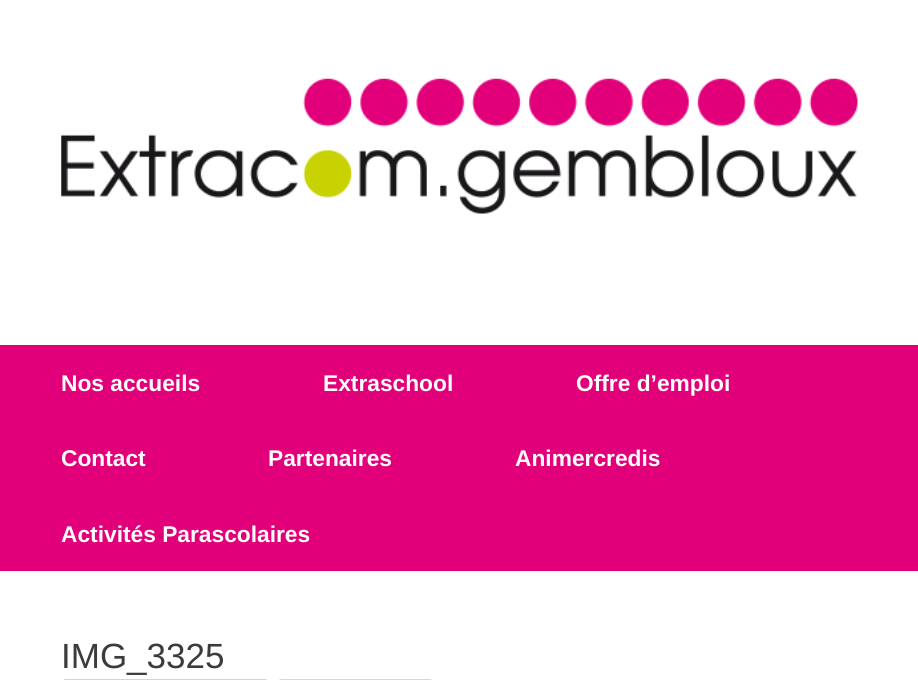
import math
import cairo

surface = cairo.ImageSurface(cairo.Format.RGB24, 918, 680)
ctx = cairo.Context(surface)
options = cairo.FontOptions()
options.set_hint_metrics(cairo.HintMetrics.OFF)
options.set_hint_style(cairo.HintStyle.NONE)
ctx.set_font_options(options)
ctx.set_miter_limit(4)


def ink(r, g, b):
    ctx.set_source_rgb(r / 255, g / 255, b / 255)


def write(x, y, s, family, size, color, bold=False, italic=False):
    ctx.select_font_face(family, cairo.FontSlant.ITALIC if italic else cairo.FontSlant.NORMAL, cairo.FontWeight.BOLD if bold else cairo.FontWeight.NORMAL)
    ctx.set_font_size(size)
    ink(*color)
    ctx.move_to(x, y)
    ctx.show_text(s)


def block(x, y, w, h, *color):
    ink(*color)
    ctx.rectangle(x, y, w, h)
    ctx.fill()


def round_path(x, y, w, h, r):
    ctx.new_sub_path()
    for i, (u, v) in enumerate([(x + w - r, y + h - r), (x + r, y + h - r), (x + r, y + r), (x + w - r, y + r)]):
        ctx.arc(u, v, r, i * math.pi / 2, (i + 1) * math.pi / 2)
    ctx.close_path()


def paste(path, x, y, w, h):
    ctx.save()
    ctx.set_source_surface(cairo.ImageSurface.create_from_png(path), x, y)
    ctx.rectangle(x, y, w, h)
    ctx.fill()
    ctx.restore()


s1 = dict(family="Liberation Sans", size=22.75, color=(255, 255, 255), bold=True)
s2 = dict(family="Liberation Sans", size=35, color=(59, 59, 59))

ink(255, 255, 255)
ctx.paint()
paste("pic1.png", 61, 78, 797, 136)
block(0, 345, 918, 226, 226, 0, 122)
write(61, 391, "Nos accueils", **s1)
write(323, 391, "Extraschool", **s1)
write(576, 391, "Offre d’emploi", **s1)
write(61, 466, "Contact", **s1)
write(268, 466, "Partenaires", **s1)
write(515, 466, "Animercredis", **s1)
write(61, 542, "Activités Parascolaires", **s1)
write(61, 668, "IMG_3325", **s2)
ctx.save()
round_path(61, 679, 209, 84, 5)
ctx.clip()
gradient = cairo.LinearGradient(63, 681, 63, 600)
gradient.add_color_stop_rgba(0, 0.875, 0.875, 0.875, 1)
gradient.add_color_stop_rgba(1, 1, 1, 1, 1)
ctx.set_source(gradient)
ctx.rectangle(61, 679, 209, 1)
ctx.fill()
ctx.restore()
ctx.new_path()
ctx.move_to(63.5, 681)
ctx.curve_to(64, 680.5, 65.5, 680, 66.5, 680)
ctx.line_to(264, 680)
ctx.curve_to(265.5, 680, 266.5, 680.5, 267.5, 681)
ink(210, 210, 210)
ctx.set_line_width(1.8)
ctx.stroke()
ctx.new_path()
ctx.move_to(278.5, 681)
ctx.curve_to(279.5, 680.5, 280.5, 680, 282, 680)
ctx.line_to(429, 680)
ctx.curve_to(430, 680, 431, 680.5, 432, 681)
ctx.stroke()
surface.write_to_png("screenshot.png")
